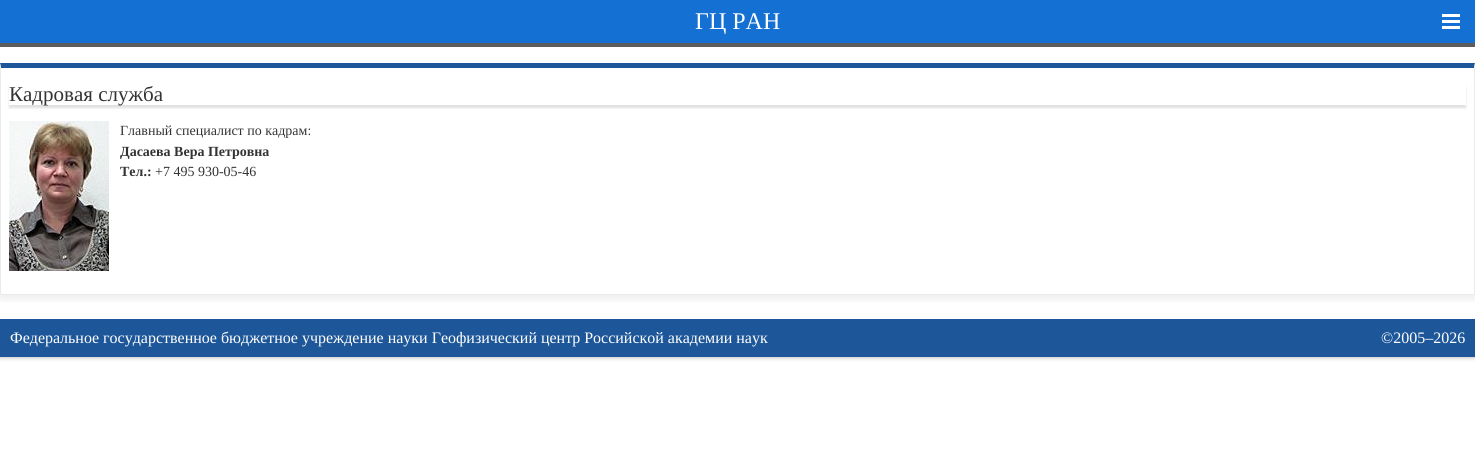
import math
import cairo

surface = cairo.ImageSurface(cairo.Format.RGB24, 1475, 472)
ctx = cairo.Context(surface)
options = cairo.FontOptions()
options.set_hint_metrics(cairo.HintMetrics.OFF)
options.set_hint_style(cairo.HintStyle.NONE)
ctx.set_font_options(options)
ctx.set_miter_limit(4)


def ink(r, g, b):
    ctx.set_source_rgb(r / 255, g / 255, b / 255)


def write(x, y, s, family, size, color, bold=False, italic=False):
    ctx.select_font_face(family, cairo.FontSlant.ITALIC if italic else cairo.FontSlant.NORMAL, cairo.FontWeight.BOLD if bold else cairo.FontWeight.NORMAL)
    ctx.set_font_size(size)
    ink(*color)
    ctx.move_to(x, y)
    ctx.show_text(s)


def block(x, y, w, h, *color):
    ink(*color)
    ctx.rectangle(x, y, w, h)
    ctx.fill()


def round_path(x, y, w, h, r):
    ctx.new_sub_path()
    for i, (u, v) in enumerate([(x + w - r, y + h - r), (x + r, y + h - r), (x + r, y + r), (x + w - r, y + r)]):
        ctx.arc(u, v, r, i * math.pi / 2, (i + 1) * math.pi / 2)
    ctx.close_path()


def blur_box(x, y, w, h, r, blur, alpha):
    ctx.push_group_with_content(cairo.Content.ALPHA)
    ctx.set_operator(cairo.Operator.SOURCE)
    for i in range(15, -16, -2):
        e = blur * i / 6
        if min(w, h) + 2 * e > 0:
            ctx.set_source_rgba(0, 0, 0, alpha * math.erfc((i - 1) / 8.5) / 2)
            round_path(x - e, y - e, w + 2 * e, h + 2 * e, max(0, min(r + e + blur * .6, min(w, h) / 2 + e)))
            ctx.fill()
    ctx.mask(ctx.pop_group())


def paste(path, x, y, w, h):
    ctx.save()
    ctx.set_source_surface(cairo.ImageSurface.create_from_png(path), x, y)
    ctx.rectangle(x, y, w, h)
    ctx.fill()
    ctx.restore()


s1 = dict(family="Liberation Serif", size=24, color=(255, 255, 255))
s2 = dict(family="Liberation Serif", size=21, color=(51, 51, 51))
s3 = dict(family="Liberation Serif", size=14, color=(51, 51, 51))
s4 = dict(family="Liberation Serif", size=14, color=(51, 51, 51), bold=True)
s5 = dict(family="Liberation Serif", size=16, color=(255, 255, 255))

ink(255, 255, 255)
ctx.paint()
ctx.save()
ctx.rectangle(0, 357, 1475, 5)
ctx.clip()
ink(170, 170, 170)
blur_box(0, 0, 1475, 357, 0, 2.5, 1)
ctx.restore()
block(0, 0, 1475, 43, 20, 112, 211)
write(695, 29, "ГЦ РАН", **s1)
block(1442, 14, 18, 3, 255, 255, 255)
block(1442, 20, 18, 3, 255, 255, 255)
block(1442, 26, 18, 3, 255, 255, 255)
block(0, 43, 1475, 4, 92, 92, 92)
ctx.save()
ctx.rectangle(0, 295, 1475, 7)
ctx.clip()
ink(0, 0, 0)
blur_box(0, 67, 1475, 232, 0, 5, 0.08)
ctx.restore()
ink(30, 87, 153)
ctx.new_path()
ctx.move_to(0, 63)
ctx.line_to(1475, 63)
ctx.line_to(1474, 68)
ctx.line_to(1, 68)
ctx.close_path()
ctx.fill()
ink(235, 235, 235)
ctx.new_path()
ctx.move_to(1475, 63)
ctx.line_to(1475, 295)
ctx.line_to(1474, 294)
ctx.line_to(1474, 68)
ctx.close_path()
ctx.fill()
block(0, 294, 1475, 1, 235, 235, 235)
ctx.new_path()
ctx.move_to(0, 295)
ctx.line_to(0, 63)
ctx.line_to(1, 68)
ctx.line_to(1, 294)
ctx.close_path()
ctx.fill()
ctx.save()
ctx.set_fill_rule(cairo.FillRule.EVEN_ODD)
ctx.new_path()
ctx.move_to(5, 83)
ctx.line_to(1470, 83)
ctx.line_to(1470, 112)
ctx.line_to(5, 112)
ctx.close_path()
ctx.move_to(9, 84)
ctx.line_to(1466, 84)
ctx.line_to(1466, 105)
ctx.line_to(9, 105)
ctx.close_path()
ctx.clip()
ink(50, 50, 50)
blur_box(9, 87, 1457, 21, 0, 1, 0.15)
ctx.restore()
write(9, 101, "Кадровая служба", **s2)
paste("pic1.png", 9, 121, 100, 150)
write(120, 135, "Главный специалист по кадрам:", **s3)
write(120, 156, "Дасаева Вера Петровна", **s4)
write(120, 176, "Тел.:", **s4)
write(155, 176, "+7 495 930-05-46", **s3)
block(0, 319, 1475, 38, 30, 87, 153)
write(10, 343, "Федеральное государственное бюджетное учреждение науки Геофизический центр Российской академии наук", **s5)
write(1381, 343, "©2005–2026", **s5)
surface.write_to_png("screenshot.png")
